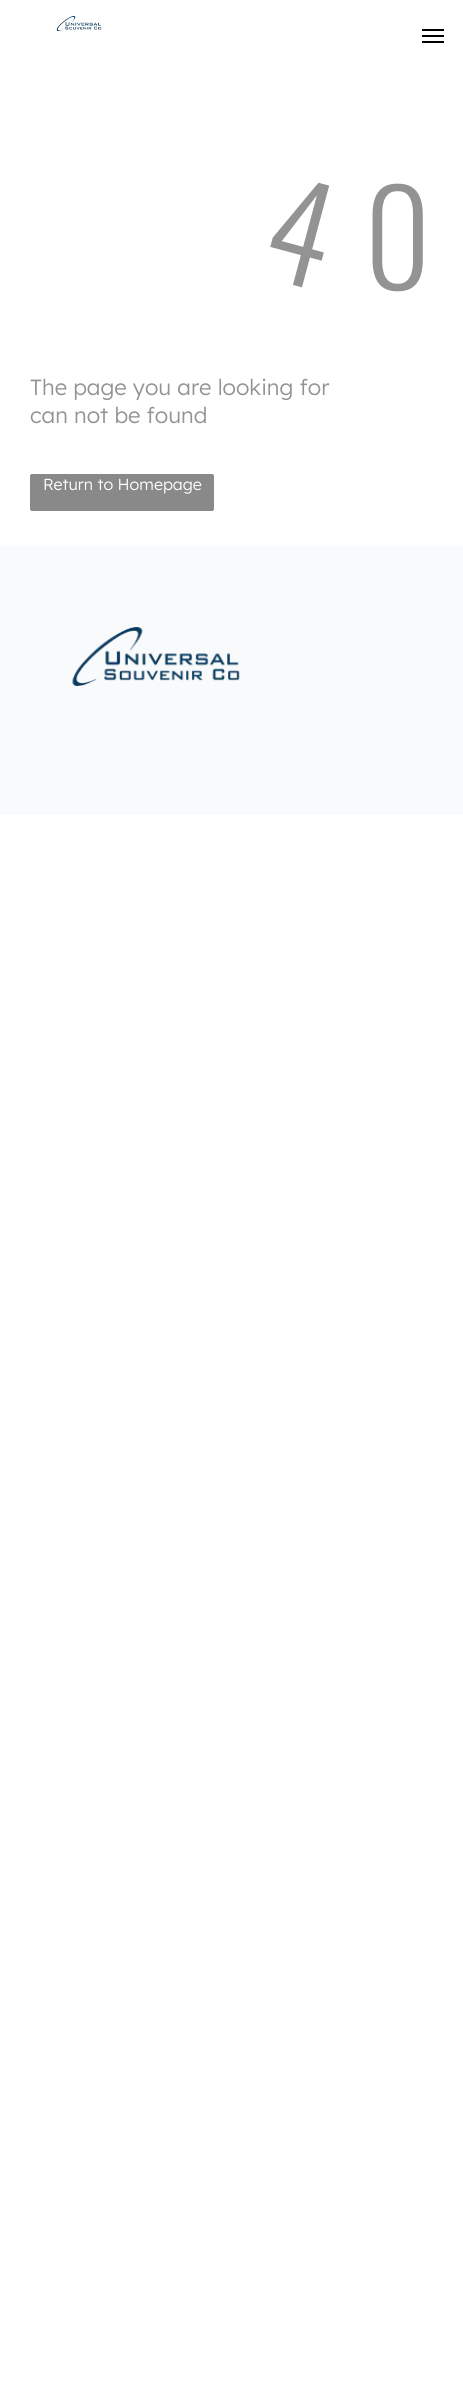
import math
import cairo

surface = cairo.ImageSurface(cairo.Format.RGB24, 463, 2400)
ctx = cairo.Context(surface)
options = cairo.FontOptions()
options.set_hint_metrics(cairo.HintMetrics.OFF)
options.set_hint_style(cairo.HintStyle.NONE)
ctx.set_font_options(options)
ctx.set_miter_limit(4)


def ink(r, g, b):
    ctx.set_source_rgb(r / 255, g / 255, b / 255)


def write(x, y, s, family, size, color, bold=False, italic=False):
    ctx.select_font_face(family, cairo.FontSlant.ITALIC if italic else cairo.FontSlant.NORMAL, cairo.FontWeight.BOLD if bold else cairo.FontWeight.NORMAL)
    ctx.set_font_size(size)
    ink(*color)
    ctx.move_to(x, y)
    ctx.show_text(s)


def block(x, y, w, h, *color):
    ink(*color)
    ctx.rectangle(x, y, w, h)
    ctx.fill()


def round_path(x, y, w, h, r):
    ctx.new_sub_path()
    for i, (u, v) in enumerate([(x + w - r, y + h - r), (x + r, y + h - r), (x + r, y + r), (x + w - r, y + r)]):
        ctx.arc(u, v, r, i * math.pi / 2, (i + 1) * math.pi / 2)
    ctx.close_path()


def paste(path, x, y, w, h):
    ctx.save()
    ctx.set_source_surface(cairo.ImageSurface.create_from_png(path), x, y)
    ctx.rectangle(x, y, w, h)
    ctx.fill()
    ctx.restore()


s1 = dict(family="Oswald Light", size=130, color=(147, 147, 147))
s2 = dict(family="Lexend Deca Light", size=22, color=(147, 147, 147))
s3 = dict(family="Lexend Deca Light", size=16, color=(255, 255, 255))

ink(255, 255, 255)
ctx.paint()
paste("pic1.png", 56, 16, 46, 15)
block(422, 29, 22, 2, 0, 0, 0)
block(422, 35, 22, 2, 0, 0, 0)
block(422, 41, 22, 2, 0, 0, 0)
ctx.save()
ctx.translate(256, 275)
ctx.rotate(15 * math.pi / 180)
write(0, 0, "4", **s1)
ctx.restore()
write(364, 290, "0", **s1)
write(30, 395, "The page you are looking for", **s2)
write(30, 423, "can not be found", **s2)
ink(137, 137, 137)
round_path(30, 474, 184, 37, 2)
ctx.fill()
write(43, 490, "Return to Homepage", **s3)
block(0, 546, 463, 269, 249, 250, 251)
paste("pic2.png", 72, 627, 168, 59)
surface.write_to_png("screenshot.png")
